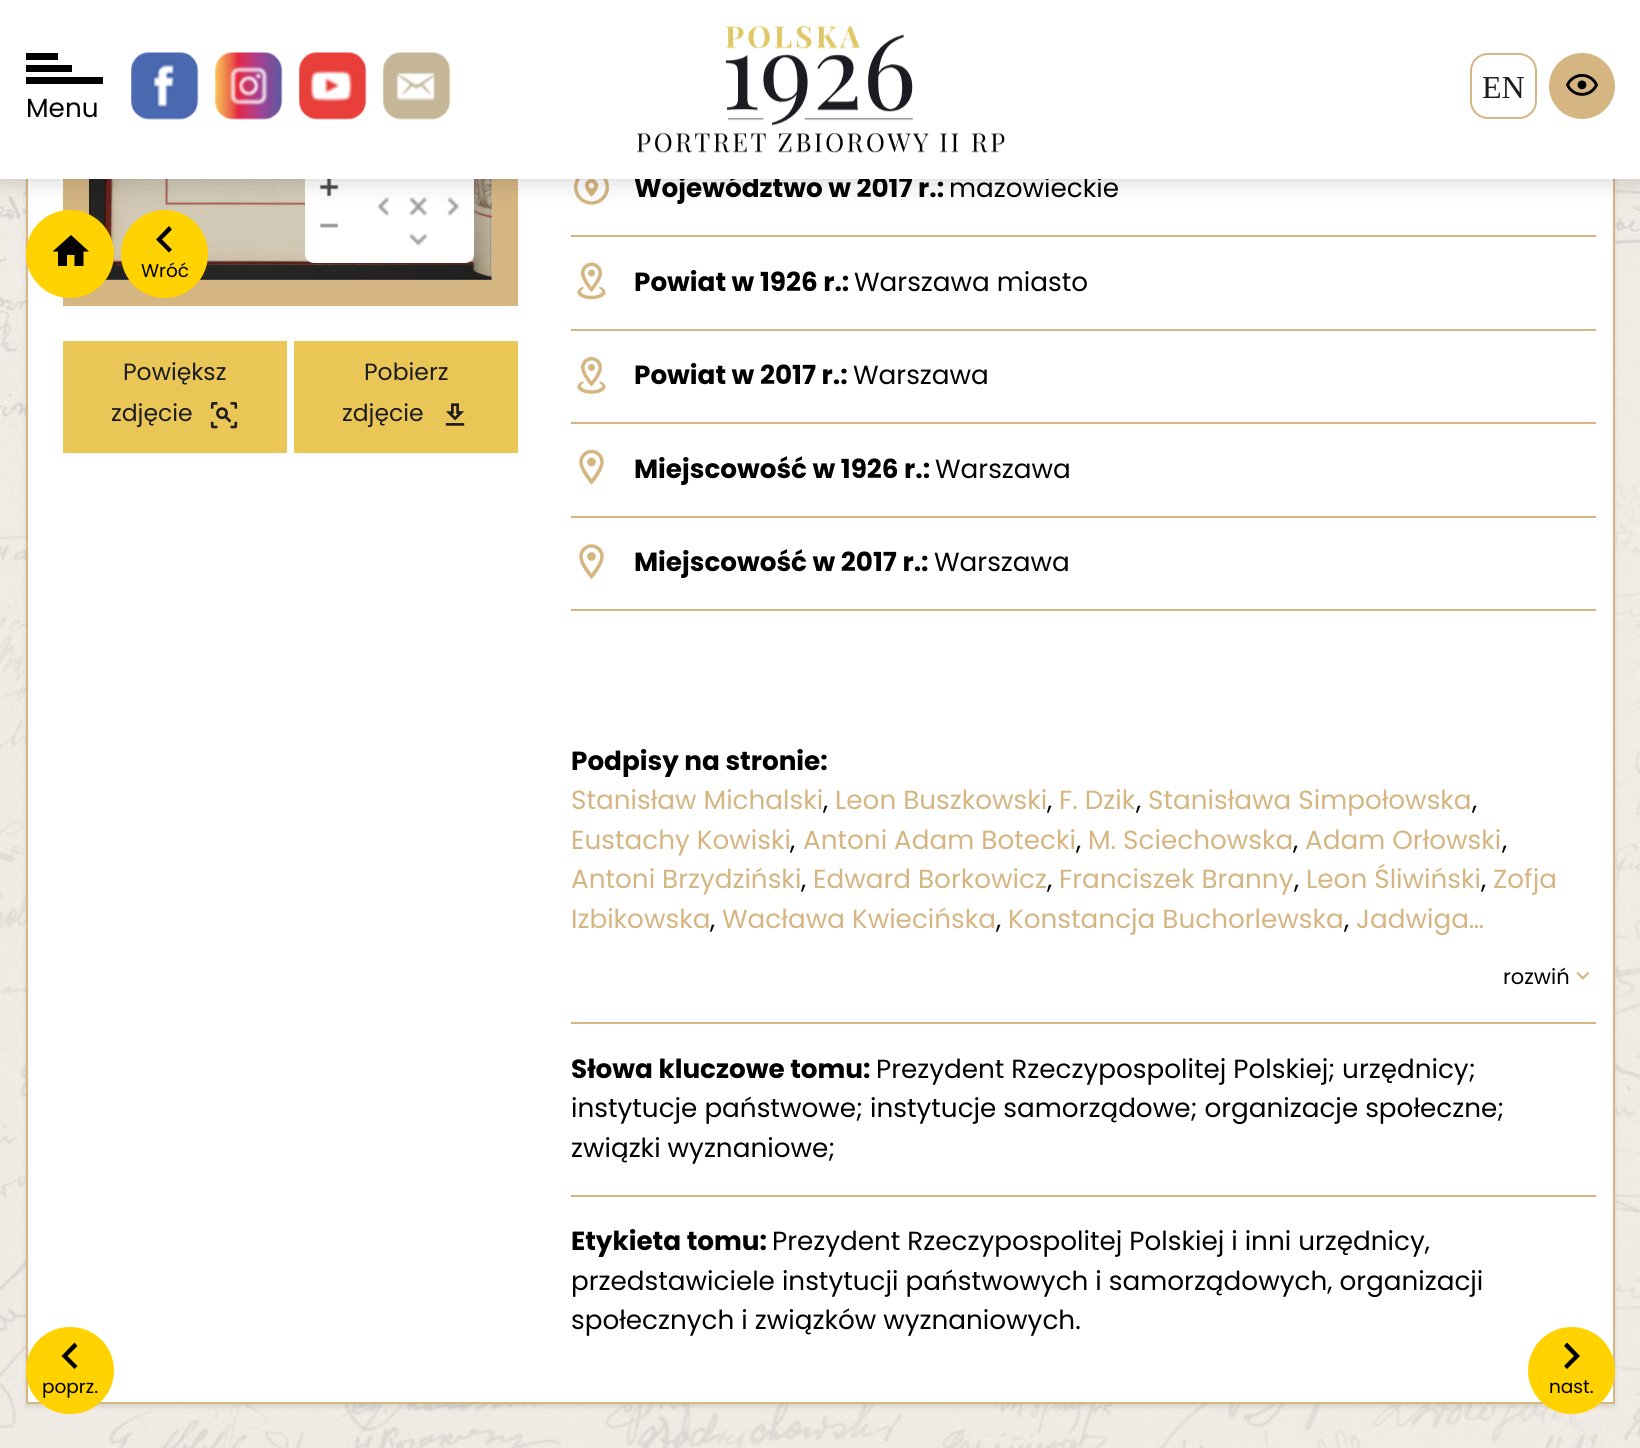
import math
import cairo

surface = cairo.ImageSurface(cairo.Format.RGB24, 1640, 1448)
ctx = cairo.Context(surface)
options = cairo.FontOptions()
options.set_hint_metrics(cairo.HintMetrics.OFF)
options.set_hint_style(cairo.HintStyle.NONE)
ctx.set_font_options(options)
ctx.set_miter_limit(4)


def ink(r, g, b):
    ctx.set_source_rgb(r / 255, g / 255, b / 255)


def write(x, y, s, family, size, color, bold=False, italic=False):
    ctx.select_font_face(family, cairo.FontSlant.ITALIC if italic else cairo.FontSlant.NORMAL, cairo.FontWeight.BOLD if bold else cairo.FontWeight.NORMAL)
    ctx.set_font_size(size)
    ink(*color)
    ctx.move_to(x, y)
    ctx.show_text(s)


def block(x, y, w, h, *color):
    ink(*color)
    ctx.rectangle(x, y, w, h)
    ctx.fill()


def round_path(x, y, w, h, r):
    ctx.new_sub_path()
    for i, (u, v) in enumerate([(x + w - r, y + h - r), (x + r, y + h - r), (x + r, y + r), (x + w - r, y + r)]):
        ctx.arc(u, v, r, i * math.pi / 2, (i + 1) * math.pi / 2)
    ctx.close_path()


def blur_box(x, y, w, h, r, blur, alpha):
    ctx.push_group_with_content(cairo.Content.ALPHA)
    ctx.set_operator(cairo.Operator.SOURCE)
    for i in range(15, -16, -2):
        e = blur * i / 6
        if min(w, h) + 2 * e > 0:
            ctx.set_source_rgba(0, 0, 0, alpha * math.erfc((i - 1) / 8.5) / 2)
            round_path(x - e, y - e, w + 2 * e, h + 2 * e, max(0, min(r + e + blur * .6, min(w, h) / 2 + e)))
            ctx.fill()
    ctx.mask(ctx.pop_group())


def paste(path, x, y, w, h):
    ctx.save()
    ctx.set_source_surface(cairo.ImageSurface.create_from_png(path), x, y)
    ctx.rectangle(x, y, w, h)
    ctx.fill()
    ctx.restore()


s1 = dict(family="Poppins", size=26.25, color=(0, 0, 0), bold=True)
s2 = dict(family="Poppins", size=26.25, color=(0, 0, 0))
s3 = dict(family="Liberation Serif", size=32, color=(27, 27, 34))
s4 = dict(family="Poppins", size=23.5, color=(27, 27, 34))
s5 = dict(family="Poppins", size=26.25, color=(213, 181, 130))
s6 = dict(family="Poppins", size=21, color=(0, 0, 0))
s7 = dict(family="Poppins", size=18.5, color=(0, 0, 0))

ink(255, 255, 255)
ctx.paint()
paste("pic1.png", 0, 179, 1640, 1269)
ink(0, 0, 0)
blur_box(26, -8, 1589, 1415, 0, 2.5, 0.1)
block(28, 179, 1585, 1223, 255, 255, 255)
ctx.rectangle(27, -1, 1587, 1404)
ink(213, 181, 130)
ctx.stroke()
ctx.rectangle(76, -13, 429, 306)
ctx.set_line_width(26)
ctx.stroke()
paste("pic14.png", 89, 179, 403, 101)
ink(255, 255, 255)
round_path(305, 151, 169, 112, 9)
ctx.fill()
paste("pic8.png", 319, 179, 20, 18)
paste("pic9.png", 377, 197, 12, 19)
paste("pic10.png", 409, 197, 19, 19)
paste("pic11.png", 447, 197, 12, 19)
ctx.set_source_rgba(0, 0, 0, 0.1)
ctx.rectangle(89, 179, 2, 37)
ctx.fill()
ctx.rectangle(490, 179, 2, 101)
ctx.fill()
paste("pic17.png", 574, 179, 35, 26)
ctx.rectangle(105, 278, 385, 2)
ctx.fill()
ink(255, 210, 0)
ctx.arc(70, 254, 44, 0, 2 * math.pi)
ctx.fill()
round_path(121, 210, 87, 88, 43.5)
ctx.fill()
ink(0, 0, 0)
blur_box(0, 0, 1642, 179, 0, 13, 0.2)
write(634, 197, "Województwo w 2017 r.:", **s1)
write(949, 197, "mazowieckie", **s2)
block(0, 0, 1640, 179, 255, 255, 255)
paste("pic2.png", 131, 52, 68, 68)
paste("pic3.png", 215, 52, 68, 68)
paste("pic4.png", 299, 52, 68, 68)
paste("pic5.png", 383, 52, 68, 68)
paste("pic6.png", 637, 26, 368, 127)
round_path(1471, 54, 65, 64, 17)
ink(213, 181, 130)
ctx.set_line_width(2)
ctx.stroke()
write(1482, 98, "EN", **s3)
ink(213, 181, 130)
ctx.new_path()
ctx.arc(1582, 86, 33, 0, 2 * math.pi)
ctx.fill()
paste("pic7.png", 1566, 73, 32, 23)
block(26, 53, 32, 7, 0, 0, 0)
block(26, 65, 46, 7, 0, 0, 0)
block(26, 77, 77, 7, 0, 0, 0)
write(26, 117, "Menu", **s2)
paste("pic12.png", 319, 223, 20, 5)
paste("pic13.png", 409, 234, 19, 12)
block(63, 341, 224, 112, 234, 198, 86)
write(123, 380, "Powiększ", **s4)
write(111, 421, "zdjęcie", **s4)
paste("pic15.png", 210, 402, 28, 27)
block(294, 341, 224, 112, 234, 198, 86)
write(364, 380, "Pobierz", **s4)
write(342, 421, "zdjęcie", **s4)
paste("pic16.png", 445, 403, 20, 23)
block(571, 235, 1025, 2, 213, 181, 130)
block(571, 329, 1025, 2, 213, 181, 130)
paste("pic18.png", 577, 262, 29, 38)
write(634, 291, "Powiat w 1926 r.:", **s1)
write(854, 291, "Warszawa miasto", **s2)
block(571, 422, 1025, 2, 213, 181, 130)
paste("pic19.png", 577, 357, 29, 37)
write(634, 384, "Powiat w 2017 r.:", **s1)
write(853, 384, "Warszawa", **s2)
block(571, 516, 1025, 2, 213, 181, 130)
paste("pic20.png", 579, 449, 25, 36)
write(634, 478, "Miejscowość w 1926 r.:", **s1)
write(935, 478, "Warszawa", **s2)
block(571, 609, 1025, 2, 213, 181, 130)
paste("pic21.png", 579, 544, 25, 36)
write(634, 571, "Miejscowość w 2017 r.:", **s1)
write(934, 571, "Warszawa", **s2)
block(571, 1022, 1025, 2, 213, 181, 130)
write(571, 770, "Podpisy na stronie:", **s1)
write(571, 809, "Stanisław Michalski", **s5)
write(823, 809, ",", **s2)
write(835, 809, "Leon Buszkowski", **s5)
write(1047, 809, ",", **s2)
write(1059, 809, "F. Dzik", **s5)
write(1136, 809, ",", **s2)
write(1148, 809, "Stanisława Simpołowska", **s5)
write(1472, 809, ",", **s2)
write(571, 849, "Eustachy Kowiski", **s5)
write(790, 849, ",", **s2)
write(803, 849, "Antoni Adam Botecki", **s5)
write(1076, 849, ",", **s2)
write(1088, 849, "M. Sciechowska", **s5)
write(1293, 849, ",", **s2)
write(1305, 849, "Adam Orłowski", **s5)
write(1502, 849, ",", **s2)
write(571, 888, "Antoni Brzydziński", **s5)
write(801, 888, ",", **s2)
write(813, 888, "Edward Borkowicz", **s5)
write(1047, 888, ",", **s2)
write(1059, 888, "Franciszek Branny", **s5)
write(1294, 888, ",", **s2)
write(1306, 888, "Leon Śliwiński", **s5)
write(1481, 888, ",", **s2)
write(1493, 888, "Zofja", **s5)
write(571, 928, "Izbikowska", **s5)
write(710, 928, ",", **s2)
write(722, 928, "Wacława Kwiecińska", **s5)
write(996, 928, ",", **s2)
write(1008, 928, "Konstancja Buchorlewska", **s5)
write(1344, 928, ",", **s2)
write(1356, 928, "Jadwiga…", **s5)
write(1503, 984, "rozwiń", **s6)
paste("pic22.png", 1576, 971, 14, 9)
block(571, 1195, 1025, 2, 213, 181, 130)
write(571, 1078, "Słowa kluczowe tomu:", **s1)
write(876, 1078, "Prezydent Rzeczypospolitej Polskiej; urzędnicy;", **s2)
write(571, 1117, "instytucje państwowe; instytucje samorządowe; organizacje społeczne;", **s2)
write(571, 1157, "związki wyznaniowe;", **s2)
write(571, 1250, "Etykieta tomu:", **s1)
write(772, 1250, "Prezydent Rzeczypospolitej Polskiej i inni urzędnicy,", **s2)
write(571, 1290, "przedstawiciele instytucji państwowych i samorządowych, organizacji", **s2)
write(571, 1329, "społecznych i związków wyznaniowych.", **s2)
ink(255, 210, 0)
round_path(26, 1327, 88, 87, 43.5)
ctx.fill()
ink(0, 0, 0)
ctx.new_path()
ctx.move_to(77.5, 1366)
ctx.line_to(67.5, 1356)
ctx.line_to(77.5, 1346)
ctx.line_to(74.5, 1342.5)
ctx.line_to(61.5, 1356)
ctx.line_to(74.5, 1369)
ctx.close_path()
ctx.fill()
write(42, 1393, "poprz.", **s7)
ink(255, 210, 0)
ctx.new_path()
ctx.arc(1571.5, 1370.5, 43.5, 0, 2 * math.pi)
ctx.fill()
ink(0, 0, 0)
ctx.new_path()
ctx.move_to(1564, 1366)
ctx.line_to(1574, 1356)
ctx.line_to(1564, 1346)
ctx.line_to(1567, 1342.5)
ctx.line_to(1580, 1356)
ctx.line_to(1567, 1369)
ctx.close_path()
ctx.fill()
write(1549, 1393, "nast.", **s7)
ctx.new_path()
ctx.move_to(67, 266)
ctx.line_to(67, 255)
ctx.line_to(74.5, 255)
ctx.line_to(74.5, 266)
ctx.line_to(83.5, 266)
ctx.line_to(83.5, 251.5)
ctx.line_to(89, 251.5)
ctx.line_to(71, 235)
ctx.line_to(52.5, 251.5)
ctx.line_to(58, 251.5)
ctx.line_to(58, 266)
ctx.close_path()
ctx.fill()
ctx.new_path()
ctx.move_to(172, 249.5)
ctx.line_to(162, 239.5)
ctx.line_to(172, 229.5)
ctx.line_to(169, 226)
ctx.line_to(156, 239.5)
ctx.line_to(169, 252.5)
ctx.close_path()
ctx.fill()
write(141, 277, "Wróć", **s7)
surface.write_to_png("screenshot.png")
